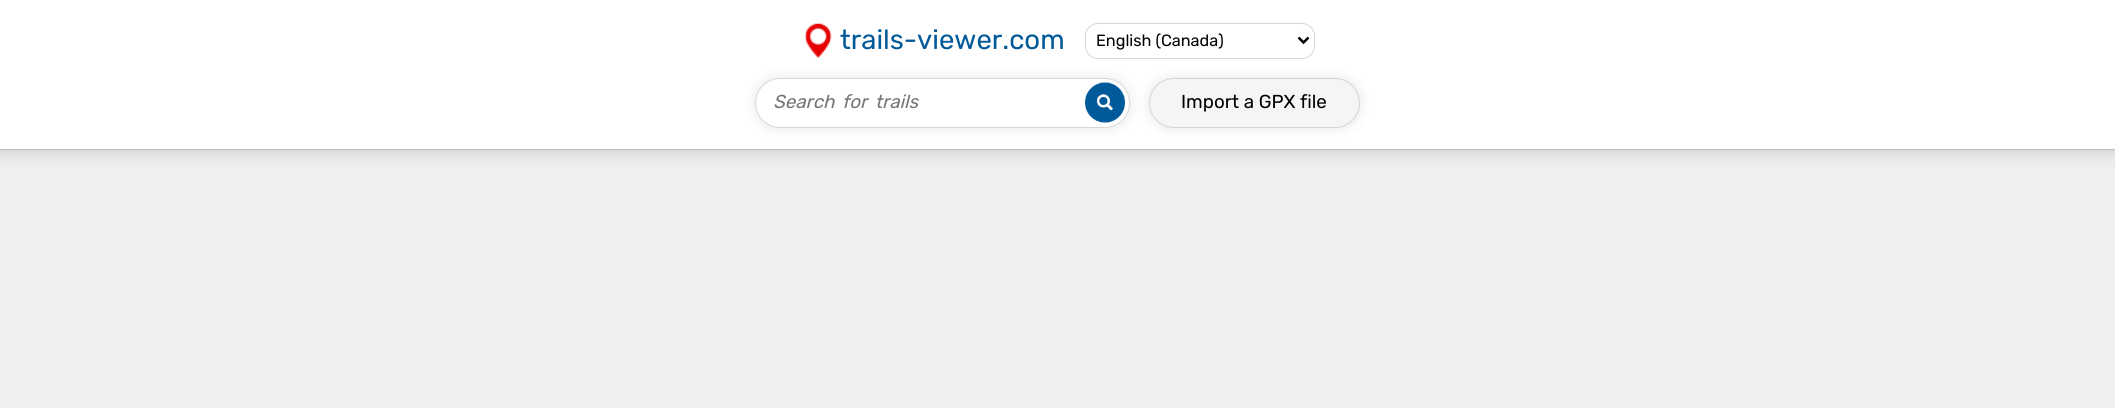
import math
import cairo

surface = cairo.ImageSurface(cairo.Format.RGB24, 2115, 408)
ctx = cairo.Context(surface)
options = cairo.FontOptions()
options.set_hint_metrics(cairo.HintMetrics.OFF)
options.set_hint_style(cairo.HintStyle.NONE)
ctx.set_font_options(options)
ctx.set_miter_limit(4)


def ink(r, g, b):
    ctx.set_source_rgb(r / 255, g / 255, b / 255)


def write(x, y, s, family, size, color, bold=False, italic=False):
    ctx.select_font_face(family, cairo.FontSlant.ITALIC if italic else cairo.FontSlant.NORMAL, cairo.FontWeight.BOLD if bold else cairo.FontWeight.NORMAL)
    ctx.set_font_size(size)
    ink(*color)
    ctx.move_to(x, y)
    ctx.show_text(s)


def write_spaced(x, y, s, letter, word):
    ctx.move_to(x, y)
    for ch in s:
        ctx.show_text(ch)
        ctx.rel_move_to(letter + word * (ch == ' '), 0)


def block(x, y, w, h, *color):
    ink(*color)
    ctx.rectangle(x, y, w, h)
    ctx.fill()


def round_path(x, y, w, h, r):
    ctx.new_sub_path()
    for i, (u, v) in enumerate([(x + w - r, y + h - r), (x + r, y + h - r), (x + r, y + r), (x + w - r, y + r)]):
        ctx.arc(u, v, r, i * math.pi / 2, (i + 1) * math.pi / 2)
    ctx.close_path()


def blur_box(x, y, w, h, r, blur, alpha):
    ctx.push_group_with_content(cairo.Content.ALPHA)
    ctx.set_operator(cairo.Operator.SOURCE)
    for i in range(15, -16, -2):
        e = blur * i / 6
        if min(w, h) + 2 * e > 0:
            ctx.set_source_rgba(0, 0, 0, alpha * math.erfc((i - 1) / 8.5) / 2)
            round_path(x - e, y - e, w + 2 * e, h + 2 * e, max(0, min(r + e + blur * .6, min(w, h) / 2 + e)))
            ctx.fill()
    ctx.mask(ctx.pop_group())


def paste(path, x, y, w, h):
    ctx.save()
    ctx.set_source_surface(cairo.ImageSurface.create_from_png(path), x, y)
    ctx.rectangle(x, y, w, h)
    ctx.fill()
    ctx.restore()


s1 = dict(family="Rubik", size=27.5, color=(0, 89, 153))
s2 = dict(family="Rubik", size=16.25, color=(0, 0, 0))
s3 = dict(family="Rubik", size=18.75, color=(0, 0, 0))

ink(240, 240, 240)
ctx.paint()
ink(0, 0, 0)
blur_box(0, 0, 2115, 150, 0, 9.5, 0.2)
block(0, 0, 2115, 149, 255, 255, 255)
block(0, 149, 2115, 1, 191, 191, 191)
paste("pic1.png", 804, 23, 28, 35)
write(840, 49, "trails-viewer.com", **s1)
round_path(1085.5, 23.5, 229, 35, 12.5)
ink(214, 214, 214)
ctx.set_line_width(1)
ctx.stroke()
ctx.new_path()
ctx.move_to(1298.5, 37.5)
ctx.line_to(1303.5, 42.5)
ctx.line_to(1308.5, 37.5)
ink(0, 0, 0)
ctx.set_line_width(2.5)
ctx.stroke()
write(1096, 46, "English (Canada)", **s2)
ctx.save()
ctx.set_fill_rule(cairo.FillRule.EVEN_ODD)
ctx.new_path()
ctx.move_to(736, 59)
ctx.line_to(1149, 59)
ctx.line_to(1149, 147)
ctx.line_to(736, 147)
ctx.close_path()
ctx.move_to(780, 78)
ctx.line_to(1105, 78)
ctx.curve_to(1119, 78, 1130, 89, 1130, 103)
ctx.curve_to(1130, 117, 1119, 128, 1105, 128)
ctx.line_to(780, 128)
ctx.curve_to(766, 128, 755, 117, 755, 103)
ctx.curve_to(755, 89, 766, 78, 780, 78)
ctx.close_path()
ctx.clip()
ink(0, 0, 0)
blur_box(755, 78, 375, 50, 25, 6, 0.1)
ctx.restore()
round_path(755.5, 78.5, 374, 49, 24.5)
ink(214, 214, 214)
ctx.set_line_width(1)
ctx.stroke()
ctx.select_font_face("Rubik", cairo.FontSlant.ITALIC)
ctx.set_font_size(18.75)
ink(117, 117, 117)
write_spaced(773, 108, "Search for trails", 0, 3)
paste("pic2.png", 1085, 82, 40, 41)
ink(0, 0, 0)
blur_box(1149, 78, 211, 50, 25, 6, 0.1)
ink(245, 245, 245)
round_path(1149.5, 78.5, 210, 49, 24.5)
ctx.fill_preserve()
ink(214, 214, 214)
ctx.stroke()
write(1181, 108, "Import a GPX file", **s3)
surface.write_to_png("screenshot.png")
